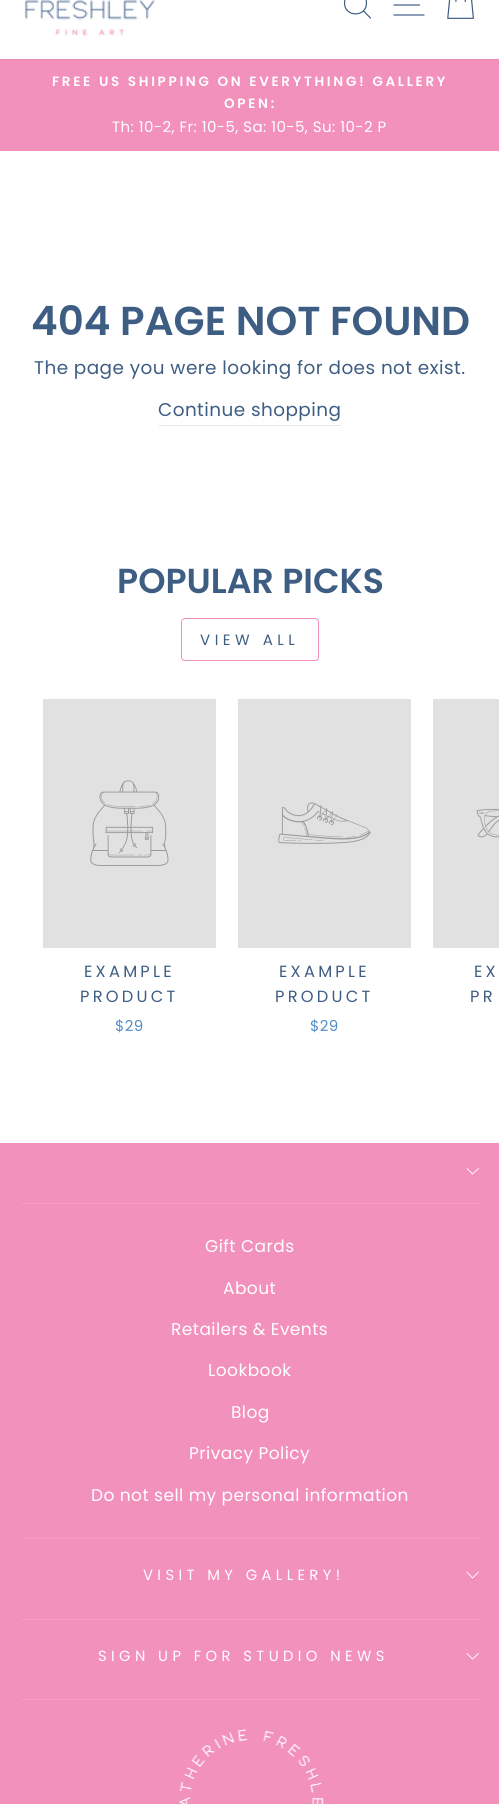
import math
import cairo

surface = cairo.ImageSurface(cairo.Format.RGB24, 499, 1804)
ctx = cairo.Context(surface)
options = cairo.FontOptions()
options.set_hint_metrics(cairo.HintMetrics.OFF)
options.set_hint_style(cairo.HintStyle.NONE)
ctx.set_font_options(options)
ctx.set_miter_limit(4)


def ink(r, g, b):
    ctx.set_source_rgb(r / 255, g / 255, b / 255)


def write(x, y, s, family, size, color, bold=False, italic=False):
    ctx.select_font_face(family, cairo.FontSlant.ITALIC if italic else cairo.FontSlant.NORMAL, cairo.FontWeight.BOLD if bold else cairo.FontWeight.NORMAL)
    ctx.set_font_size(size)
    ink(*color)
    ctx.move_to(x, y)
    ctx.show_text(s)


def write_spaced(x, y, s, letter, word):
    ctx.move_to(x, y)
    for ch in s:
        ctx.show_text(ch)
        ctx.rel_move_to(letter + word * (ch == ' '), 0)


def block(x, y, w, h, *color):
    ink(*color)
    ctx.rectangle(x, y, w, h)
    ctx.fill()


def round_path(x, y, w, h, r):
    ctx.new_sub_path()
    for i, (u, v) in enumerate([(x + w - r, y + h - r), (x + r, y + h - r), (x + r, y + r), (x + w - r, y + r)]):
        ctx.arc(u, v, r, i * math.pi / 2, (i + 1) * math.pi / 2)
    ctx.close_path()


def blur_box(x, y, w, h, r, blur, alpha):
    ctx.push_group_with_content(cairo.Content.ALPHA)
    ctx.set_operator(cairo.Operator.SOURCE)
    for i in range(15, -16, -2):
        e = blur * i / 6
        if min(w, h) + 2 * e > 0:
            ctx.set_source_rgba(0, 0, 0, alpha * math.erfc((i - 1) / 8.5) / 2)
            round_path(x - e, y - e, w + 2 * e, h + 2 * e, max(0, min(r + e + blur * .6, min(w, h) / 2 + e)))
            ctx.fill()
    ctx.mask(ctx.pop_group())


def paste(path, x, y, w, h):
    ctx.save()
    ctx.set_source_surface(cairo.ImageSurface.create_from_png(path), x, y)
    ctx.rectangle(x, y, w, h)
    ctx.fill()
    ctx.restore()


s1 = dict(family="Poppins SemiBold", size=40.4, color=(62, 93, 131))
s2 = dict(family="Poppins SemiBold", size=34.75, color=(62, 93, 131))

ink(255, 255, 255)
ctx.paint()
block(0, 59, 499, 92, 242, 145, 187)
ink(0, 0, 0)
blur_box(0, -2, 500, 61, 0, 0.5, 0.2)
block(0, 0, 499, 59, 255, 255, 255)
paste("pic1.png", 24, 0, 131, 36)
ctx.new_path()
ctx.move_to(366.5, 3)
ctx.curve_to(366.5, 17.5, 344.5, 17.5, 344.5, 3)
ctx.curve_to(344.5, -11.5, 366.5, -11.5, 366.5, 3)
ctx.close_path()
ctx.move_to(370.5, 18)
ctx.line_to(363.5, 11)
ink(62, 93, 131)
ctx.set_line_width(1.2)
ctx.set_line_cap(cairo.LineCap.ROUND)
ctx.set_line_join(cairo.LineJoin.ROUND)
ctx.stroke()
ctx.new_path()
ctx.move_to(394, -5)
ctx.line_to(424, -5)
ctx.move_to(394, 5)
ctx.line_to(419.5, 5)
ctx.move_to(394, 15)
ctx.line_to(424, 15)
ctx.stroke()
paste("pic2.png", 447, 0, 27, 19)
ctx.select_font_face("Poppins SemiBold")
ctx.set_font_size(13.5)
ink(255, 255, 255)
write_spaced(52, 86, "FREE US SHIPPING ON EVERYTHING! GALLERY", 2.7, 0)
write_spaced(224, 108, "OPEN:", 2.7, 0)
ctx.select_font_face("Poppins")
ctx.set_font_size(15)
write_spaced(112, 132, "Th: 10-2, Fr: 10-5, Sa: 10-5, Su: 10-2 P", 0.45, 0)
write(31, 335, "404 PAGE NOT FOUND", **s1)
ctx.select_font_face("Poppins")
ctx.set_font_size(18.4)
write_spaced(34, 374, "The page you were looking for does not exist.", 0.45, 0)
block(159, 425, 182, 1, 226, 231, 236)
ink(62, 93, 131)
write_spaced(158, 416, "Continue shopping", 0.45, 0)
write(117, 593, "POPULAR PICKS", **s2)
round_path(181.5, 618.5, 137, 42, 3.5)
ink(242, 145, 187)
ctx.set_line_width(1)
ctx.set_line_cap(cairo.LineCap.BUTT)
ctx.set_line_join(cairo.LineJoin.MITER)
ctx.stroke()
ctx.select_font_face("Poppins")
ctx.set_font_size(15)
ink(62, 93, 131)
write_spaced(200, 645, "VIEW ALL", 4.5, 0)
block(43, 699, 173, 249, 225, 225, 225)
paste("pic3.png", 90, 780, 79, 86)
ctx.set_font_size(16.25)
ink(62, 93, 131)
write_spaced(84, 977, "EXAMPLE", 3.25, 0)
write_spaced(80, 1002, "PRODUCT", 3.25, 0)
ctx.set_font_size(15)
ink(83, 141, 196)
write_spaced(115, 1031, "$29", 0.45, 0)
block(238, 699, 173, 249, 225, 225, 225)
paste("pic4.png", 278, 802, 93, 42)
ctx.set_font_size(16.25)
ink(62, 93, 131)
write_spaced(279, 977, "EXAMPLE", 3.25, 0)
write_spaced(275, 1002, "PRODUCT", 3.25, 0)
ctx.set_font_size(15)
ink(83, 141, 196)
write_spaced(310, 1031, "$29", 0.45, 0)
block(433, 699, 66, 249, 225, 225, 225)
paste("pic5.png", 476, 808, 23, 30)
ctx.set_font_size(16.25)
ink(62, 93, 131)
write_spaced(474, 977, "EX", 3.25, 0)
write_spaced(470, 1002, "PR", 3.25, 0)
block(0, 1143, 499, 661, 242, 145, 187)
ctx.new_path()
ctx.move_to(467, 1168.5)
ctx.line_to(472.5, 1174)
ctx.line_to(478.5, 1168.5)
ink(255, 255, 255)
ctx.set_line_width(0.9)
ctx.set_line_cap(cairo.LineCap.ROUND)
ctx.set_line_join(cairo.LineJoin.ROUND)
ctx.stroke()
block(21, 1203, 458, 1, 244, 158, 195)
ctx.set_font_size(17)
ink(255, 255, 255)
write_spaced(205, 1252, "Gift Cards", 0.45, 0)
write_spaced(223, 1294, "About", 0.45, 0)
write_spaced(171, 1335, "Retailers & Events", 0.45, 0)
write_spaced(208, 1376, "Lookbook", 0.45, 0)
write_spaced(231, 1418, "Blog", 0.45, 0)
write_spaced(189, 1459, "Privacy Policy", 0.45, 0)
write_spaced(91, 1501, "Do not sell my personal information", 0.45, 0)
block(21, 1538, 458, 1, 244, 158, 195)
ctx.set_font_size(14.75)
ink(255, 255, 255)
write_spaced(143, 1580, "VISIT MY GALLERY!", 4.4, 0)
ctx.new_path()
ctx.move_to(467, 1572)
ctx.line_to(472.5, 1578)
ctx.line_to(478.5, 1572)
ctx.stroke()
block(21, 1619, 458, 1, 244, 158, 195)
ink(255, 255, 255)
write_spaced(98, 1661, "SIGN UP FOR STUDIO NEWS", 4.4, 0)
ctx.new_path()
ctx.move_to(467, 1653.5)
ctx.line_to(472.5, 1659)
ctx.line_to(478.5, 1653.5)
ctx.stroke()
block(21, 1699, 458, 1, 244, 158, 195)
paste("pic6.png", 178, 1729, 146, 75)
surface.write_to_png("screenshot.png")
